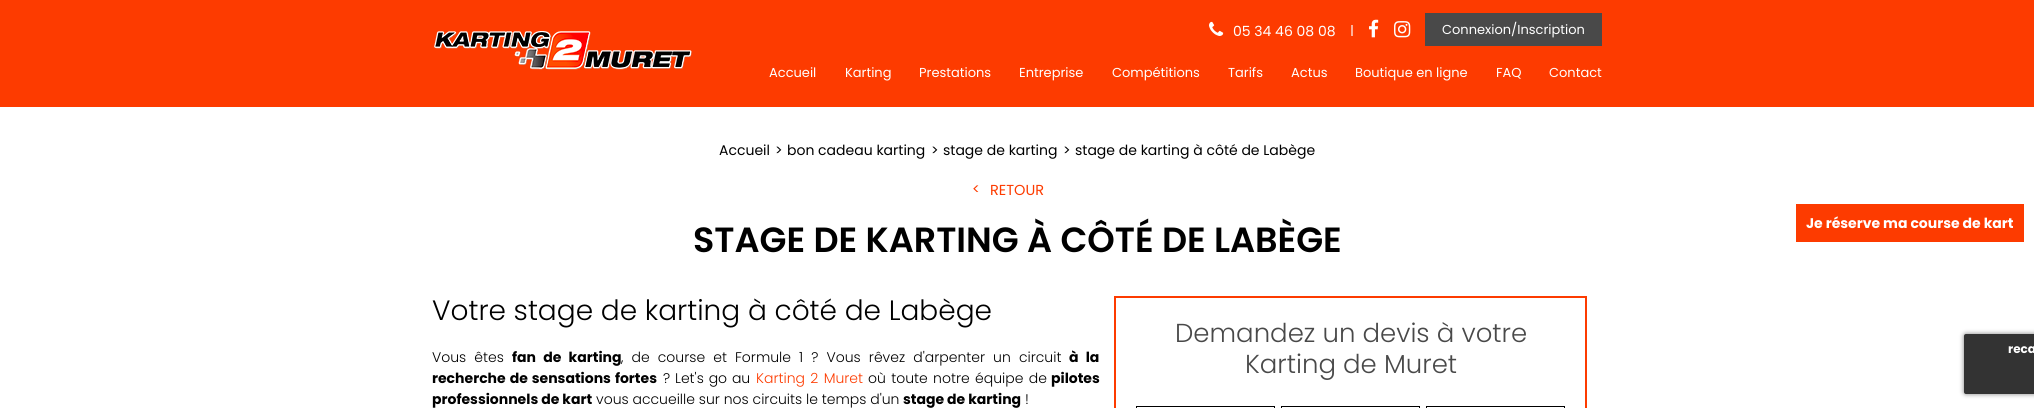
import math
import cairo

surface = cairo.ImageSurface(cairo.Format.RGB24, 2034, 408)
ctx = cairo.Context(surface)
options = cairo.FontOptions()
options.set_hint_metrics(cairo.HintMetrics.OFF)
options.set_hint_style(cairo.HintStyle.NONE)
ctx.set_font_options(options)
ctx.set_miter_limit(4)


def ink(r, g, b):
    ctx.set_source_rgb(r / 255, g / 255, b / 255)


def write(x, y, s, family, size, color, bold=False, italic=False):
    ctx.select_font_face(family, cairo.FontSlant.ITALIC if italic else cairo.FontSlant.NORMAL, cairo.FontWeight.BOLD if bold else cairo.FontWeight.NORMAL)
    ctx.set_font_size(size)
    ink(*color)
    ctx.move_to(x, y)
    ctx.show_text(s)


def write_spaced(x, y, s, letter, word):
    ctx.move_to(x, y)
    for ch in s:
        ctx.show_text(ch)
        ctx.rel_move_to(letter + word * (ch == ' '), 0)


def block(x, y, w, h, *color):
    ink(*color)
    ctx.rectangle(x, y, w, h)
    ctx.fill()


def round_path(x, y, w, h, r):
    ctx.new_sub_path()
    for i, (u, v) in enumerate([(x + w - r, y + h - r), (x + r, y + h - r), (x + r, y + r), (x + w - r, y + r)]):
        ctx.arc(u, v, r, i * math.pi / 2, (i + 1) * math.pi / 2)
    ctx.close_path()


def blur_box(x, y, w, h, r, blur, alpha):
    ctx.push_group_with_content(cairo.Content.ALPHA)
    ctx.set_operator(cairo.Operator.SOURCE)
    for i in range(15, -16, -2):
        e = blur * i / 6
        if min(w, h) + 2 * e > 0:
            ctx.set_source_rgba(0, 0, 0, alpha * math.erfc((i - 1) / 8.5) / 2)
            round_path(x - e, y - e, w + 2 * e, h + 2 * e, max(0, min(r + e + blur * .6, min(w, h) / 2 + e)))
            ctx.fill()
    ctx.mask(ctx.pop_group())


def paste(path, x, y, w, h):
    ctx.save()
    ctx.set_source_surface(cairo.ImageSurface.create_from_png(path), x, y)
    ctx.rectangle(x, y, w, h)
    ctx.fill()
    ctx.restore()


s1 = dict(family="Poppins", size=14, color=(255, 255, 255))
s2 = dict(family="Poppins", size=13, color=(255, 255, 255))
s3 = dict(family="Poppins", size=14, color=(0, 0, 0))
s4 = dict(family="Poppins", size=14.5, color=(253, 59, 0))
s5 = dict(family="Poppins SemiBold", size=35, color=(0, 0, 0))
s6 = dict(family="Poppins Light", size=28, color=(0, 0, 0))
s7 = dict(family="Poppins", size=14, color=(0, 0, 0), bold=True)
s8 = dict(family="Poppins Light", size=14, color=(0, 0, 0))
s9 = dict(family="Poppins Light", size=26, color=(73, 73, 73))
s10 = dict(family="Poppins", size=14, color=(255, 255, 255), bold=True)
s11 = dict(family="Poppins", size=12, color=(255, 255, 255), bold=True)

ink(255, 255, 255)
ctx.paint()
block(0, 0, 2034, 107, 253, 59, 0)
paste("pic1.png", 434, 31, 258, 39)
paste("pic2.png", 1209, 21, 15, 15)
write(1233, 36, "05 34 46 08 08", **s1)
block(1351, 25, 2, 11, 254, 177, 153)
paste("pic3.png", 1369, 19, 10, 19)
paste("pic4.png", 1394, 21, 17, 17)
block(1425, 13, 177, 33, 73, 73, 73)
write(1442, 34, "Connexion/Inscription", **s2)
write(769, 77, "Accueil", **s2)
write(845, 77, "Karting", **s2)
write(919, 77, "Prestations", **s2)
write(1019, 77, "Entreprise", **s2)
write(1112, 77, "Compétitions", **s2)
write(1228, 77, "Tarifs", **s2)
write(1291, 77, "Actus", **s2)
write(1355, 77, "Boutique en ligne", **s2)
write(1496, 77, "FAQ", **s2)
write(1549, 77, "Contact", **s2)
write(719, 155, "Accueil", **s3)
write(775, 155, ">", **s3)
write(787, 155, "bon cadeau karting", **s3)
write(931, 155, ">", **s3)
write(943, 155, "stage de karting", **s3)
write(1063, 155, ">", **s3)
write(1075, 155, "stage de karting à côté de Labège", **s3)
write(972, 194, "<", **s4)
write(990, 195, "RETOUR", **s4)
write(693, 252, "STAGE DE KARTING À CÔTÉ DE LABÈGE", **s5)
write(432, 320, "Votre stage de karting à côté de Labège", **s6)
ctx.set_font_size(14)
write_spaced(432, 362, "Vous êtes", 0, 4.25)
ctx.select_font_face("Poppins", cairo.FontSlant.NORMAL, cairo.FontWeight.BOLD)
write_spaced(512, 362, "fan de karting", 0, 4.25)
ctx.select_font_face("Poppins Light")
write_spaced(621, 362, ", de course et Formule 1 ? Vous rêvez d'arpenter un circuit", 0, 4.25)
ctx.select_font_face("Poppins", cairo.FontSlant.NORMAL, cairo.FontWeight.BOLD)
write_spaced(1069, 362, "à la", 0, 4.25)
write_spaced(432, 383, "recherche de sensations fortes", 0, 1)
ctx.select_font_face("Poppins Light")
write_spaced(663, 383, "? Let's go au", 0, 1)
ink(253, 59, 0)
write_spaced(756, 383, "Karting 2 Muret", 0, 1.5)
ink(0, 0, 0)
write_spaced(868, 383, "où toute notre équipe de", 0, 1.5)
write(1051, 383, "pilotes", **s7)
write(432, 404, "professionnels de kart", **s7)
write(596, 404, "vous accueille sur nos circuits le temps d'un", **s8)
write(903, 404, "stage de karting", **s7)
write(1025, 404, "!", **s8)
ctx.rectangle(1115, 297, 471, 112)
ink(253, 59, 0)
ctx.stroke()
write(1175, 342, "Demandez un devis à votre", **s9)
write(1245, 373, "Karting de Muret", **s9)
ctx.rectangle(1136.5, 406.5, 138, 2)
ink(0, 0, 0)
ctx.set_line_width(1)
ctx.stroke()
ctx.rectangle(1281.5, 406.5, 138, 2)
ctx.stroke()
ctx.rectangle(1426.5, 406.5, 138, 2)
ctx.stroke()
block(1796, 204, 228, 38, 253, 59, 0)
write(1806, 228, "Je réserve ma course de kart", **s10)
ink(128, 128, 128)
blur_box(1964, 334, 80, 60, 2, 2.5, 1)
ink(51, 51, 51)
round_path(1964, 334, 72, 60, 2)
ctx.fill()
write(2008, 353, "reca", **s11)
surface.write_to_png("screenshot.png")
